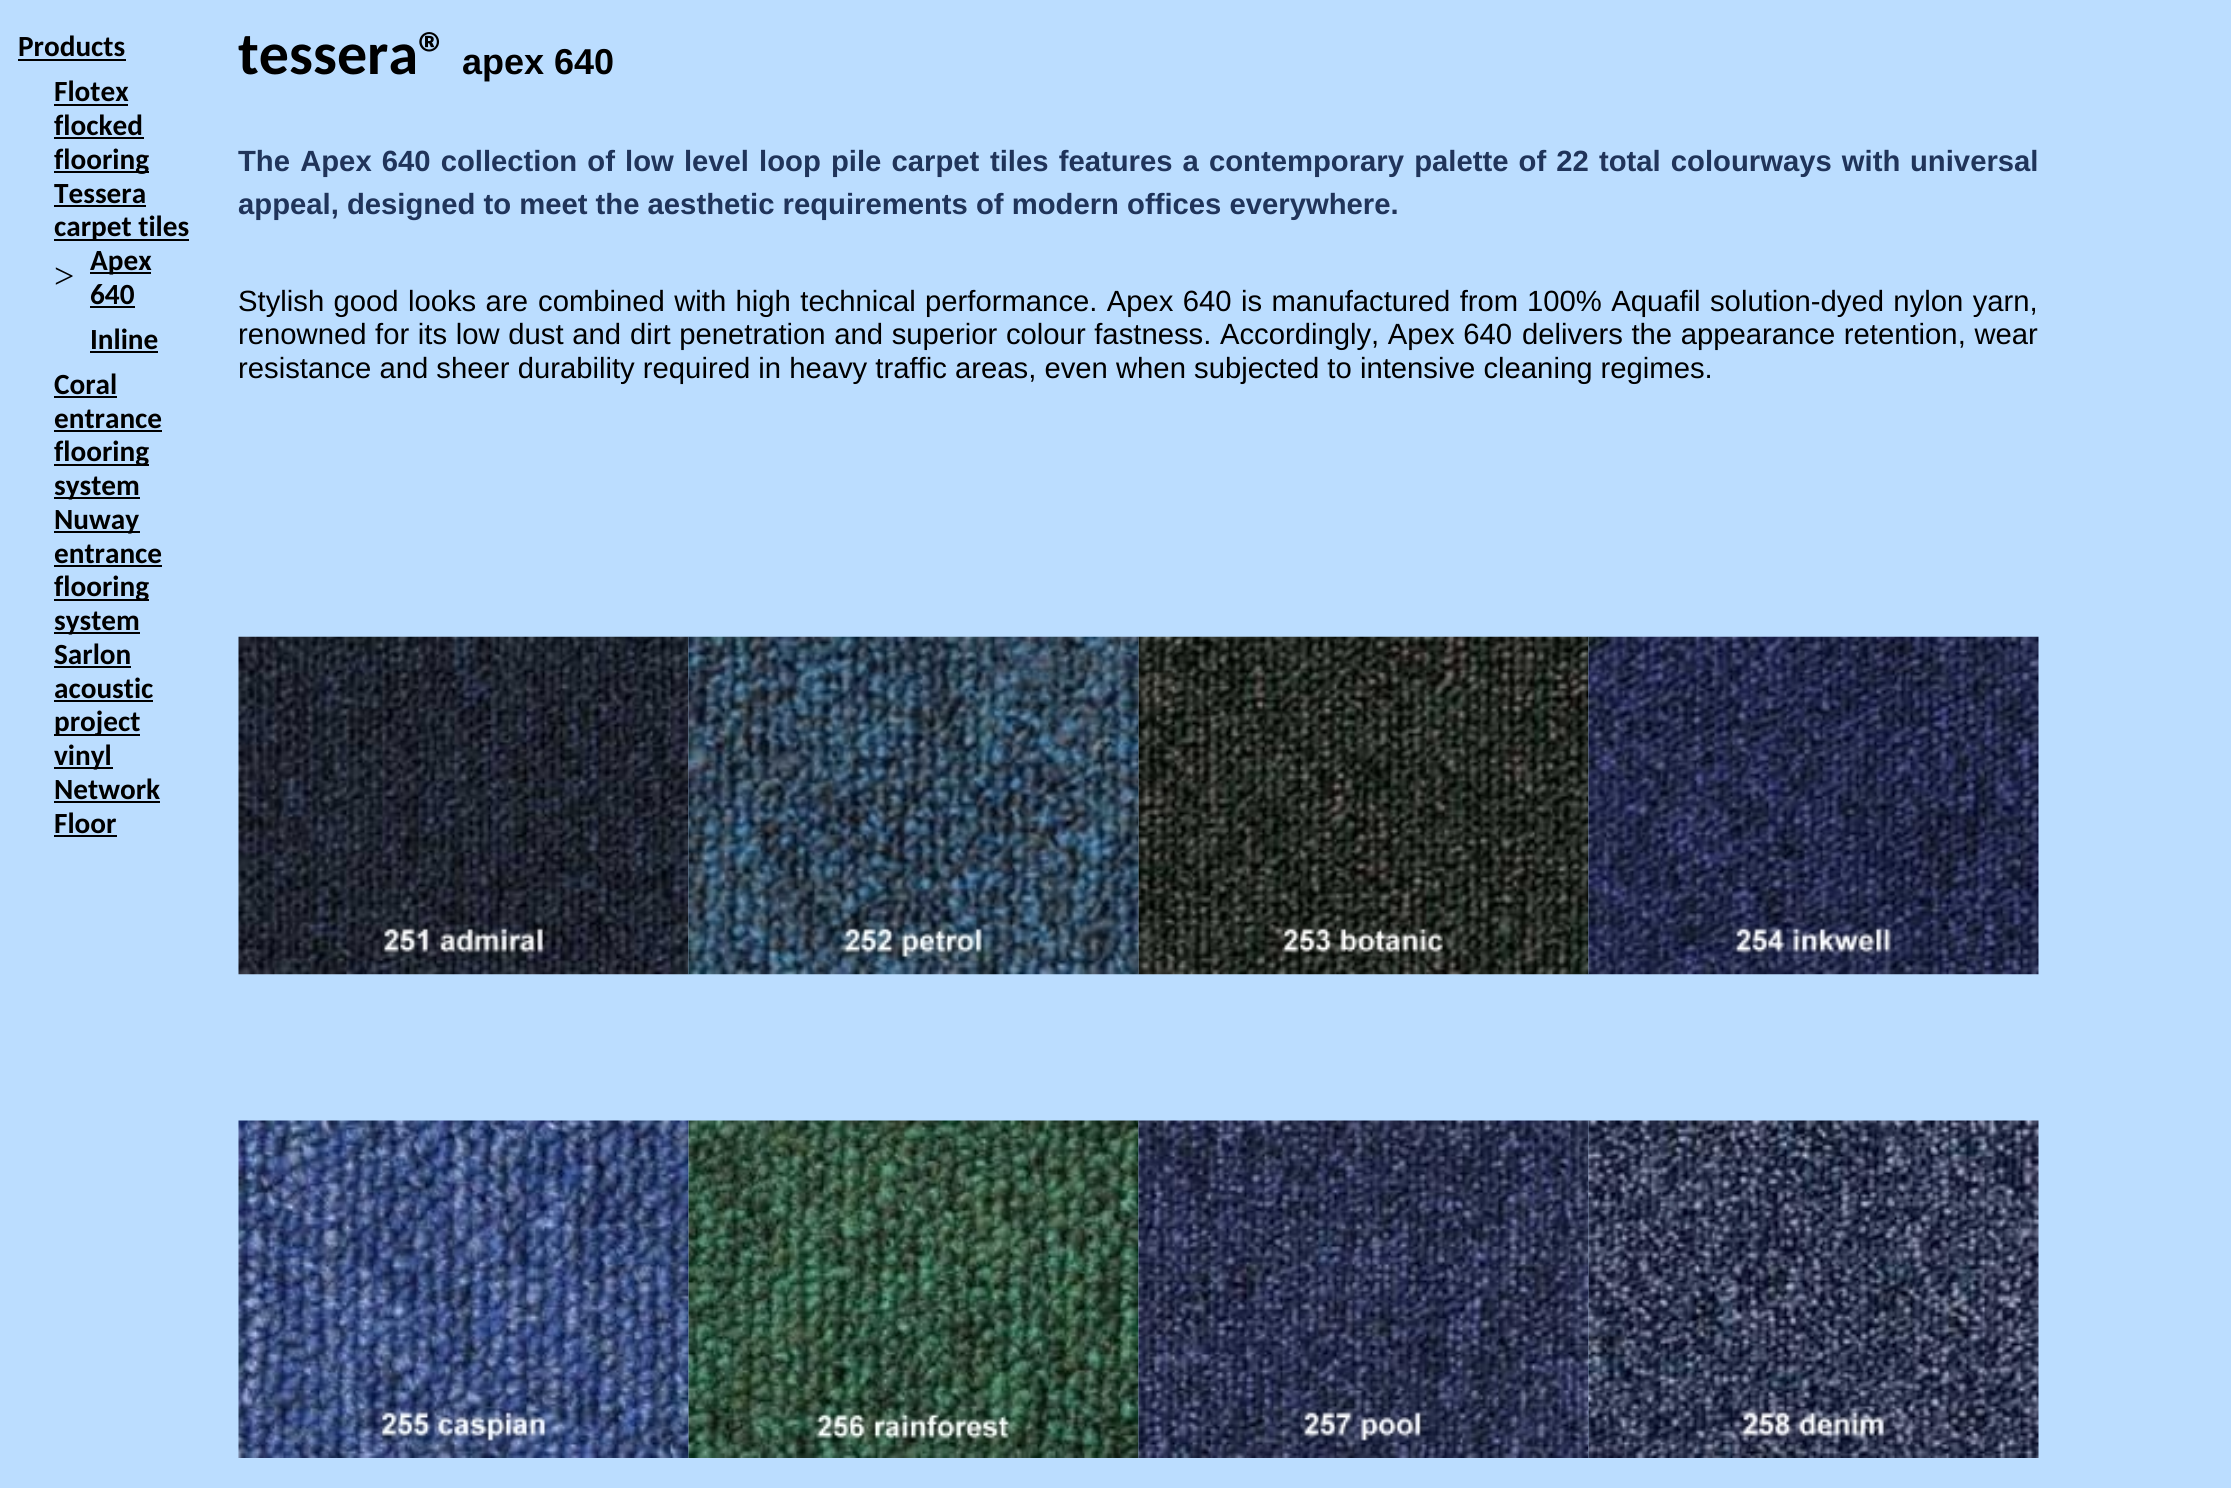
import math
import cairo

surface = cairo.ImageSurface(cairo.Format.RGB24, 2231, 1488)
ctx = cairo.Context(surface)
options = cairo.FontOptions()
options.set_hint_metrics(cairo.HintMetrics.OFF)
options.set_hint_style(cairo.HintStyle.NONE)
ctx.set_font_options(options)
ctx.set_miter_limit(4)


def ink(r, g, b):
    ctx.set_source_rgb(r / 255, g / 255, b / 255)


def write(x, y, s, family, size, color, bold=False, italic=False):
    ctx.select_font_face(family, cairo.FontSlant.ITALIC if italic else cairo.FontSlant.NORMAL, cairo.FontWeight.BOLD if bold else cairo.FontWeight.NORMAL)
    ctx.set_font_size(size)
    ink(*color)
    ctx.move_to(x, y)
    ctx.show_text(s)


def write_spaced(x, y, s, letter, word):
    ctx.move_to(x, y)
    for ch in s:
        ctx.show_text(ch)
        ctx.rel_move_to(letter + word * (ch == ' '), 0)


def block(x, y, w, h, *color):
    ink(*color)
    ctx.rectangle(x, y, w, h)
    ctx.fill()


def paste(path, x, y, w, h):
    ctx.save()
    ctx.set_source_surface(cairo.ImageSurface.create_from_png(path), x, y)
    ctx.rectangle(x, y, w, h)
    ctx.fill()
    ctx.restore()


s1 = dict(family="Carlito", size=29.25, color=(0, 0, 0), bold=True)
s2 = dict(family="Carlito", size=60, color=(0, 0, 0), bold=True)
s3 = dict(family="Liberation Sans", size=36, color=(0, 0, 0), bold=True)
s4 = dict(family="Liberation Sans", size=29.25, color=(32, 52, 90), bold=True)
s5 = dict(family="Liberation Sans", size=29.25, color=(0, 0, 0))
s6 = dict(family="Liberation Serif", size=36, color=(0, 0, 0))

ink(187, 221, 255)
ctx.paint()
write(18, 56, "Products", **s1)
block(18, 59, 108, 2, 0, 0, 0)
write(238, 74, "tessera®", **s2)
write(462, 74, "apex 640", **s3)
ctx.set_font_size(29.25)
ink(32, 52, 90)
write_spaced(238, 171, "The Apex 640 collection of low level loop pile carpet", 0, 2)
write_spaced(990, 171, "tiles features a contemporary palette of 22 total colourways with", 0, 2)
write(1910, 171, "universal", **s4)
write(238, 214, "appeal, designed to meet the aesthetic requirements of modern offices everywhere.", **s4)
ctx.select_font_face("Liberation Sans")
ink(0, 0, 0)
write_spaced(238, 311, "Stylish good looks are", 0, 1.25)
write_spaced(538, 311, "combined with high technical performance. Apex 640 is manufactured from", 0, 1.25)
write_spaced(1527, 311, "100% Aquafil solution-dyed nylon yarn,", 0, 1.25)
write_spaced(238, 344, "renowned for its low dust and", 0, 0.5)
write_spaced(630, 344, "dirt penetration and superior colour fastness. Accordingly, Apex 640", 0, 0.5)
write_spaced(1522, 344, "delivers the appearance retention, wear", 0, 0.5)
write(238, 378, "resistance and sheer durability required in heavy traffic areas, even when subjected to intensive cleaning regimes.", **s5)
write(54, 101, "Flotex", **s1)
block(54, 104, 74, 2, 0, 0, 0)
write(54, 135, "flocked", **s1)
block(54, 137, 90, 2, 0, 0, 0)
block(54, 171, 95, 2, 0, 0, 0)
write(54, 169, "flooring", **s1)
write(54, 203, "Tessera", **s1)
block(54, 205, 92, 2, 0, 0, 0)
block(54, 239, 135, 2, 0, 0, 0)
write(54, 236, "carpet tiles", **s1)
write(54, 288, ">", **s6)
block(90, 272, 61, 2, 0, 0, 0)
write(90, 270, "Apex", **s1)
write(90, 304, "640", **s1)
block(90, 306, 45, 2, 0, 0, 0)
write(90, 349, "Inline", **s1)
block(90, 351, 68, 2, 0, 0, 0)
write(54, 394, "Coral", **s1)
block(54, 396, 63, 2, 0, 0, 0)
write(54, 428, "entrance", **s1)
block(54, 430, 108, 2, 0, 0, 0)
block(54, 464, 95, 2, 0, 0, 0)
write(54, 461, "flooring", **s1)
block(54, 497, 86, 2, 0, 0, 0)
write(54, 495, "system", **s1)
block(54, 531, 86, 2, 0, 0, 0)
write(54, 529, "Nuway", **s1)
write(54, 563, "entrance", **s1)
block(54, 565, 108, 2, 0, 0, 0)
block(54, 599, 95, 2, 0, 0, 0)
write(54, 596, "flooring", **s1)
block(54, 632, 86, 2, 0, 0, 0)
write(54, 630, "system", **s1)
write(54, 664, "Sarlon", **s1)
block(54, 666, 77, 2, 0, 0, 0)
write(54, 698, "acoustic", **s1)
block(54, 700, 99, 2, 0, 0, 0)
block(54, 734, 86, 2, 0, 0, 0)
write(54, 731, "project", **s1)
block(54, 767, 59, 2, 0, 0, 0)
write(54, 765, "vinyl", **s1)
paste("pic1.png", 238, 636, 451, 339)
paste("pic2.png", 688, 636, 451, 339)
paste("pic3.png", 1138, 636, 451, 339)
paste("pic4.png", 1588, 636, 451, 339)
write(54, 799, "Network", **s1)
block(54, 801, 106, 2, 0, 0, 0)
write(54, 833, "Floor", **s1)
block(54, 835, 63, 2, 0, 0, 0)
paste("pic5.png", 238, 1120, 451, 338)
paste("pic6.png", 688, 1120, 451, 338)
paste("pic7.png", 1138, 1120, 451, 338)
paste("pic8.png", 1588, 1120, 451, 338)
surface.write_to_png("screenshot.png")
